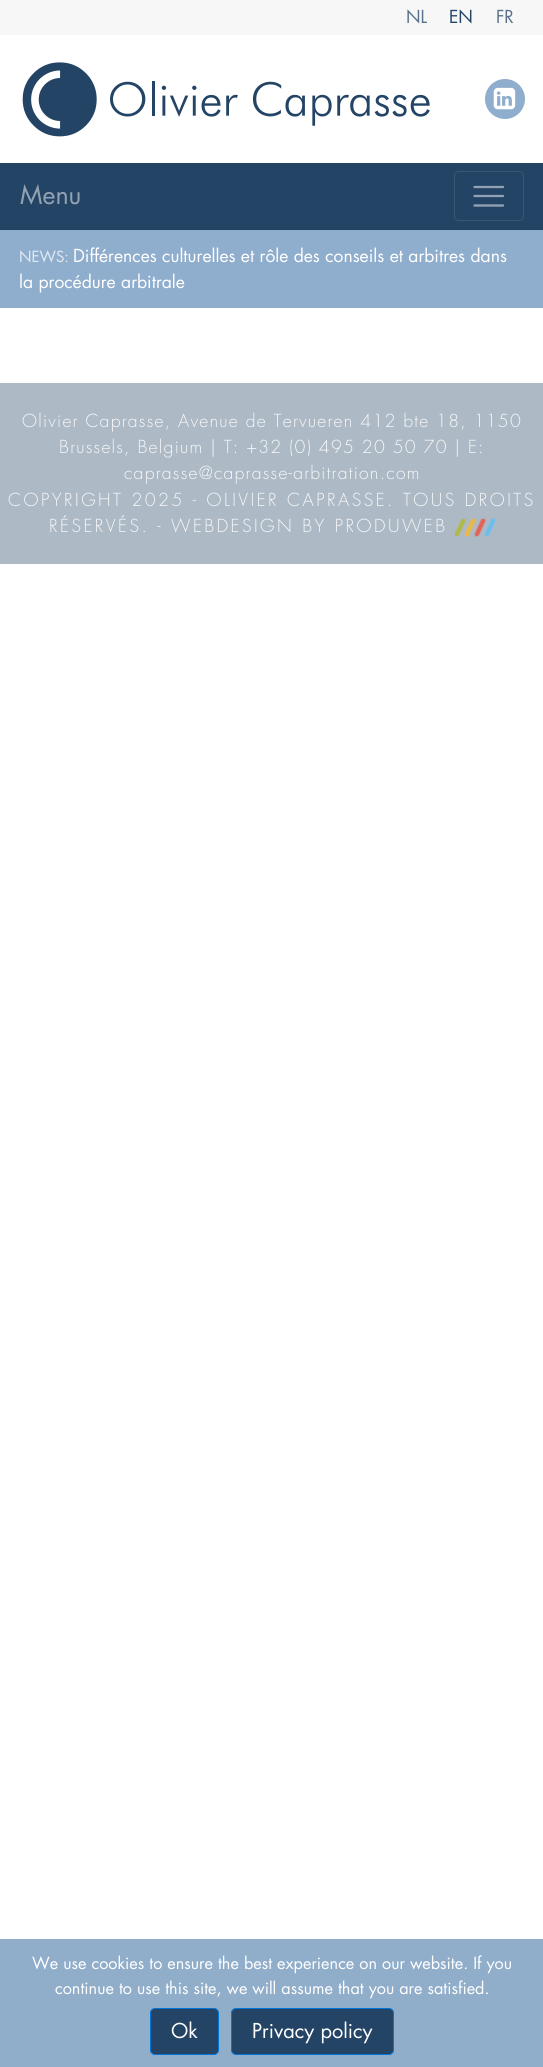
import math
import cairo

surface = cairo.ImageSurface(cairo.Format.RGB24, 543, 2067)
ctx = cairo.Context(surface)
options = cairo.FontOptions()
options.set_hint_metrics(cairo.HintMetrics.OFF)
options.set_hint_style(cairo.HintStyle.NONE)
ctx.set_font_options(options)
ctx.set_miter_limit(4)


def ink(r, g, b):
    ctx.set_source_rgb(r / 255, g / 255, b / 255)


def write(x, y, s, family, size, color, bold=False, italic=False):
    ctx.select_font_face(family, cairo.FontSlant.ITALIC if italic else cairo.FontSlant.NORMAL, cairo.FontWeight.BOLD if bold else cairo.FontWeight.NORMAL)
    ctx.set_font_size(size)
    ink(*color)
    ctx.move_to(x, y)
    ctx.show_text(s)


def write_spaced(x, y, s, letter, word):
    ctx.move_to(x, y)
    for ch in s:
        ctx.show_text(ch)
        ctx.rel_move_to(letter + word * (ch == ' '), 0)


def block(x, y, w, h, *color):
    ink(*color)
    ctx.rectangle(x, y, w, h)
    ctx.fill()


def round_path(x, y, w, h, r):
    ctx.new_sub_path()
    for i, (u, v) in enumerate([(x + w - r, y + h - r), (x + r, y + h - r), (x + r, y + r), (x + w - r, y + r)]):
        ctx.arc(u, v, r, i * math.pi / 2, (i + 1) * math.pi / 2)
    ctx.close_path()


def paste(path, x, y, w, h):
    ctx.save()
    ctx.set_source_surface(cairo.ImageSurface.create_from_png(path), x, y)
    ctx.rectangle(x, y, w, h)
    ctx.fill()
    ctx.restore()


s1 = dict(family="Futura", size=17.5, color=(89, 113, 138))
s2 = dict(family="Futura", size=17.5, color=(36, 68, 102))
s3 = dict(family="Futura", size=25, color=(146, 162, 179))
s4 = dict(family="Futura", size=15, color=(227, 235, 242))
s5 = dict(family="Futura", size=17.5, color=(255, 255, 255))
s6 = dict(family="Futura", size=16.25, color=(255, 255, 255))
s7 = dict(family="Futura", size=20, color=(255, 255, 255))

ink(255, 255, 255)
ctx.paint()
block(0, 0, 543, 35, 247, 247, 247)
write(406, 23, "NL", **s1)
write(449, 23, "EN", **s2)
write(496, 23, "FR", **s1)
paste("pic1.png", 22, 62, 408, 75)
ink(143, 173, 204)
ctx.arc(505, 99, 20, 0, 2 * math.pi)
ctx.fill()
paste("pic2.png", 493, 87, 23, 23)
block(0, 163, 543, 67, 36, 68, 102)
write(20, 204, "Menu", **s3)
round_path(454.5, 171.5, 69, 49, 4.5)
ink(58, 87, 117)
ctx.set_line_width(1)
ctx.stroke()
ctx.new_path()
ctx.move_to(474.5, 187)
ctx.line_to(503, 187)
ctx.move_to(474.5, 196)
ctx.line_to(503, 196)
ctx.move_to(474.5, 205.5)
ctx.line_to(503, 205.5)
ink(146, 162, 179)
ctx.set_line_width(2.3)
ctx.set_line_cap(cairo.LineCap.ROUND)
ctx.stroke()
block(0, 230, 543, 78, 143, 173, 204)
write(19, 262, "NEWS:", **s4)
write(73, 262, "Différences culturelles et rôle des conseils et arbitres dans", **s5)
write(19, 288, "la procédure arbitrale", **s5)
block(0, 383, 543, 181, 173, 185, 197)
ctx.select_font_face("Futura Light")
ink(247, 248, 249)
write_spaced(22, 427, "Olivier Caprasse, Avenue de Tervueren 412 bte 18, 1150", 1.25, 0)
write_spaced(59, 453, "Brussels, Belgium | T: +32 (0) 495 20 50 70 | E:", 1.25, 0)
write_spaced(124, 479, "caprasse@caprasse-arbitration.com", 1.25, 0)
write_spaced(8, 506, "COPYRIGHT 2025 - OLIVIER CAPRASSE. TOUS DROITS", 2.5, 0)
write_spaced(49, 532, "RÉSERVÉS. - WEBDESIGN BY PRODUWEB", 2.5, 0)
paste("pic3.png", 455, 518, 40, 19)
block(0, 1939, 543, 128, 144, 173, 202)
write(32, 1969, "We use cookies to ensure the best experience on our website. If you", **s6)
write(55, 1994, "continue to use this site, we will assume that you are satisfied.", **s6)
ink(36, 68, 102)
round_path(150.5, 2008.5, 68, 46, 4.5)
ctx.fill_preserve()
ink(2, 117, 216)
ctx.set_line_width(1)
ctx.set_line_cap(cairo.LineCap.BUTT)
ctx.stroke()
write(171, 2038, "Ok", **s7)
ink(36, 68, 102)
round_path(231.5, 2008.5, 162, 46, 4.5)
ctx.fill_preserve()
ink(2, 117, 216)
ctx.stroke()
write(252, 2038, "Privacy policy", **s7)
surface.write_to_png("screenshot.png")
